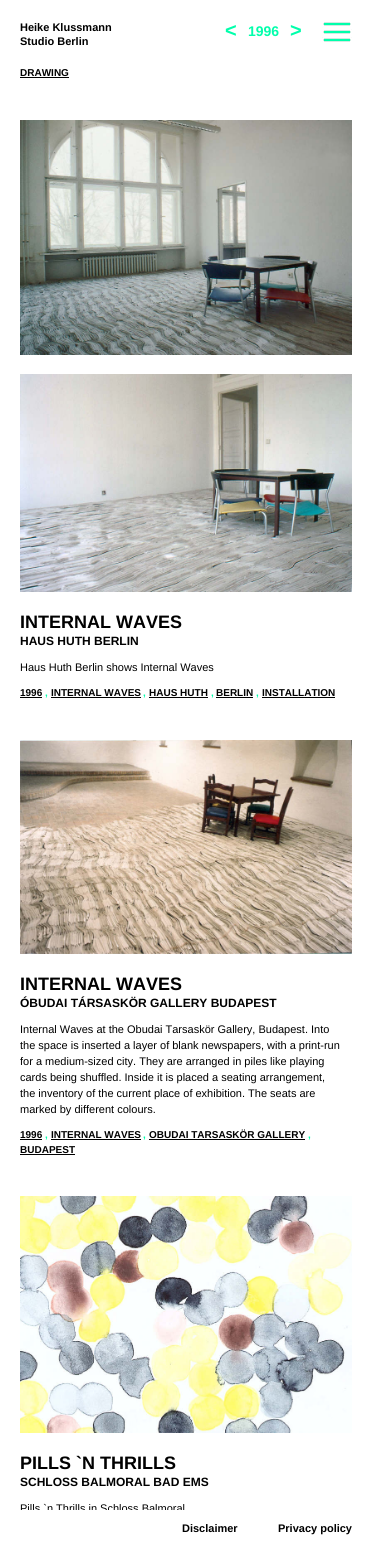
import math
import cairo

surface = cairo.ImageSurface(cairo.Format.RGB24, 372, 1550)
ctx = cairo.Context(surface)
options = cairo.FontOptions()
options.set_hint_metrics(cairo.HintMetrics.OFF)
options.set_hint_style(cairo.HintStyle.NONE)
ctx.set_font_options(options)
ctx.set_miter_limit(4)


def ink(r, g, b):
    ctx.set_source_rgb(r / 255, g / 255, b / 255)


def write(x, y, s, family, size, color, bold=False, italic=False):
    ctx.select_font_face(family, cairo.FontSlant.ITALIC if italic else cairo.FontSlant.NORMAL, cairo.FontWeight.BOLD if bold else cairo.FontWeight.NORMAL)
    ctx.set_font_size(size)
    ink(*color)
    ctx.move_to(x, y)
    ctx.show_text(s)


def block(x, y, w, h, *color):
    ink(*color)
    ctx.rectangle(x, y, w, h)
    ctx.fill()


def paste(path, x, y, w, h):
    ctx.save()
    ctx.set_source_surface(cairo.ImageSurface.create_from_png(path), x, y)
    ctx.rectangle(x, y, w, h)
    ctx.fill()
    ctx.restore()


s1 = dict(family="Liberation Sans", size=11, color=(0, 0, 0), bold=True)
s2 = dict(family="Liberation Sans", size=20, color=(0, 255, 171), bold=True)
s3 = dict(family="Liberation Sans", size=14, color=(0, 255, 171), bold=True)
s4 = dict(family="Liberation Sans", size=10, color=(0, 0, 0), bold=True)
s5 = dict(family="Liberation Sans", size=18, color=(0, 0, 0), bold=True)
s6 = dict(family="Liberation Sans", size=12, color=(0, 0, 0), bold=True)
s7 = dict(family="Liberation Sans", size=11, color=(0, 0, 0))
s8 = dict(family="Liberation Sans", size=10, color=(0, 255, 171), bold=True)

ink(255, 255, 255)
ctx.paint()
write(20, 31, "Heike Klussmann", **s1)
write(20, 45, "Studio Berlin", **s1)
write(225, 37, "<", **s2)
write(248, 36, "1996", **s3)
write(290, 37, ">", **s2)
paste("pic1.png", 322, 22, 30, 20)
write(20, 76, "DRAWING", **s4)
block(20, 77, 49, 1, 0, 0, 0)
paste("pic2.png", 20, 120, 332, 235)
paste("pic3.png", 20, 374, 332, 218)
write(20, 628, "INTERNAL WAVES", **s5)
write(20, 645, "HAUS HUTH BERLIN", **s6)
write(20, 671, "Haus Huth Berlin shows Internal Waves", **s7)
write(20, 696, "1996", **s4)
block(20, 697, 22, 1, 0, 0, 0)
write(45, 696, ",", **s8)
write(51, 696, "INTERNAL WAVES", **s4)
block(51, 697, 90, 1, 0, 0, 0)
write(143, 696, ",", **s8)
write(149, 696, "HAUS HUTH", **s4)
block(149, 697, 59, 1, 0, 0, 0)
write(211, 696, ",", **s8)
write(216, 696, "BERLIN", **s4)
block(216, 697, 37, 1, 0, 0, 0)
write(256, 696, ",", **s8)
write(262, 696, "INSTALLATION", **s4)
block(262, 697, 73, 1, 0, 0, 0)
paste("pic4.png", 20, 740, 332, 214)
write(20, 990, "INTERNAL WAVES", **s5)
write(20, 1007, "ÓBUDAI TÁRSASKÖR GALLERY BUDAPEST", **s6)
write(20, 1033, "Internal Waves at the Obudai Tarsaskör Gallery, Budapest. Into", **s7)
write(20, 1049, "the space is inserted a layer of blank newspapers, with a print-run", **s7)
write(20, 1065, "for a medium-sized city. They are arranged in piles like playing", **s7)
write(20, 1081, "cards being shuffled. Inside it is placed a seating arrangement,", **s7)
write(20, 1097, "the inventory of the current place of exhibition. The seats are", **s7)
write(20, 1113, "marked by different colours.", **s7)
write(20, 1138, "1996", **s4)
block(20, 1139, 22, 1, 0, 0, 0)
write(45, 1138, ",", **s8)
write(51, 1138, "INTERNAL WAVES", **s4)
block(51, 1139, 90, 1, 0, 0, 0)
write(143, 1138, ",", **s8)
write(149, 1138, "OBUDAI TARSASKÖR GALLERY", **s4)
block(149, 1139, 156, 1, 0, 0, 0)
write(308, 1138, ",", **s8)
write(20, 1153, "BUDAPEST", **s4)
block(20, 1154, 55, 1, 0, 0, 0)
paste("pic5.png", 20, 1196, 332, 237)
write(20, 1469, "PILLS `N THRILLS", **s5)
write(20, 1486, "SCHLOSS BALMORAL BAD EMS", **s6)
write(20, 1512, "Pills `n Thrills in Schloss Balmoral", **s7)
block(20, 1510, 165, 3, 255, 255, 255)
write(182, 1532, "Disclaimer", **s1)
write(278, 1532, "Privacy policy", **s1)
surface.write_to_png("screenshot.png")
